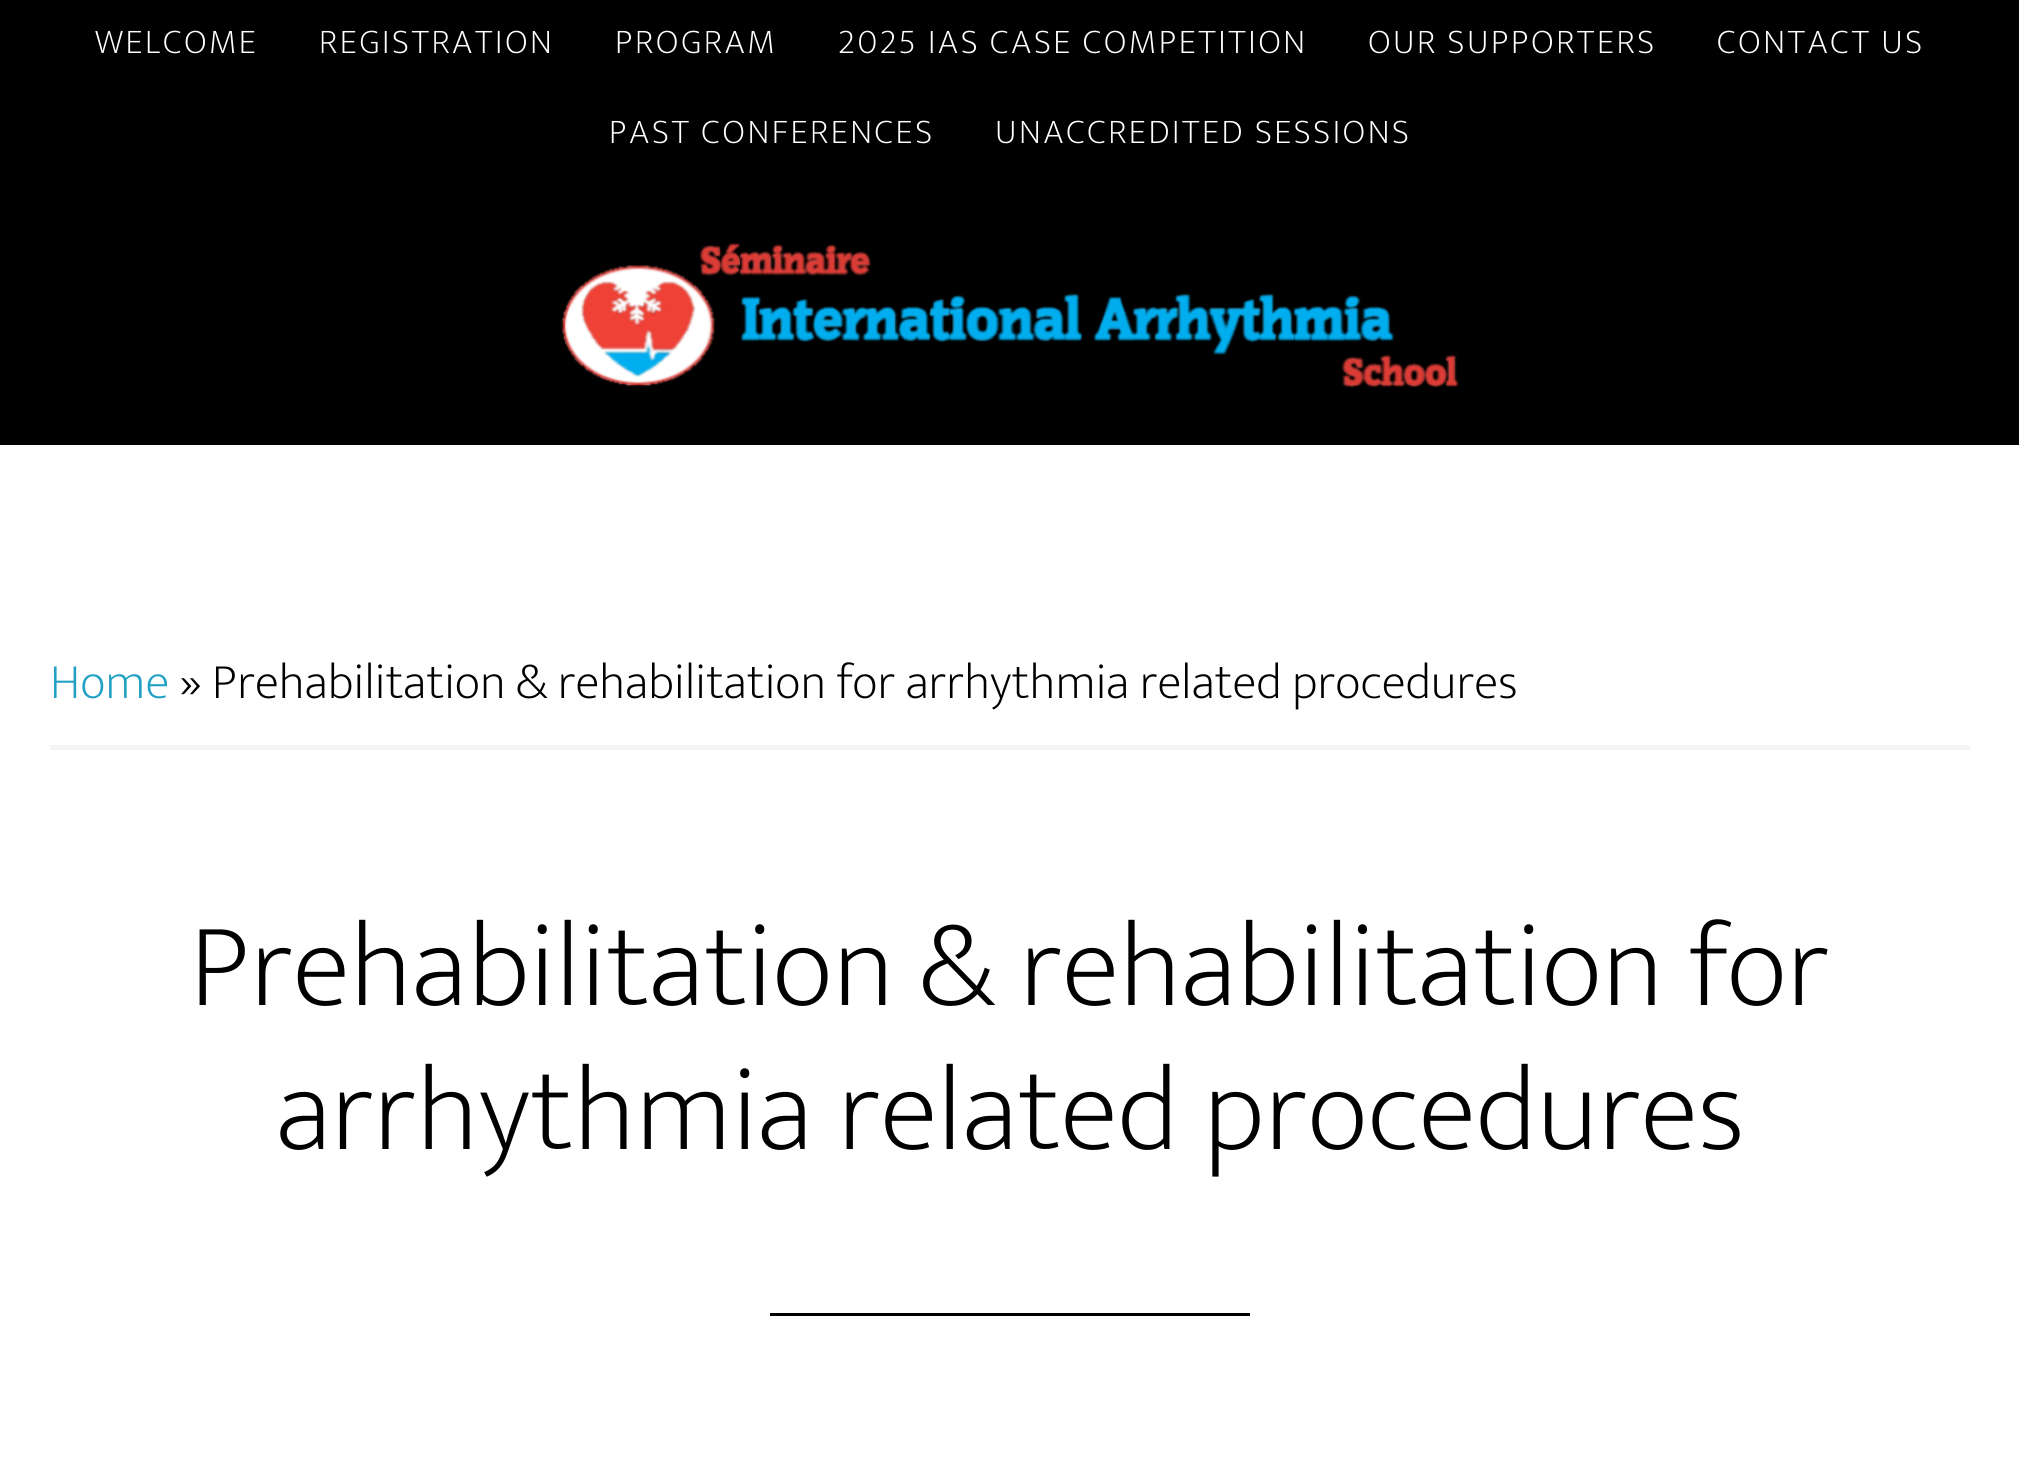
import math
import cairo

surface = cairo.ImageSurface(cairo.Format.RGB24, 2019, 1461)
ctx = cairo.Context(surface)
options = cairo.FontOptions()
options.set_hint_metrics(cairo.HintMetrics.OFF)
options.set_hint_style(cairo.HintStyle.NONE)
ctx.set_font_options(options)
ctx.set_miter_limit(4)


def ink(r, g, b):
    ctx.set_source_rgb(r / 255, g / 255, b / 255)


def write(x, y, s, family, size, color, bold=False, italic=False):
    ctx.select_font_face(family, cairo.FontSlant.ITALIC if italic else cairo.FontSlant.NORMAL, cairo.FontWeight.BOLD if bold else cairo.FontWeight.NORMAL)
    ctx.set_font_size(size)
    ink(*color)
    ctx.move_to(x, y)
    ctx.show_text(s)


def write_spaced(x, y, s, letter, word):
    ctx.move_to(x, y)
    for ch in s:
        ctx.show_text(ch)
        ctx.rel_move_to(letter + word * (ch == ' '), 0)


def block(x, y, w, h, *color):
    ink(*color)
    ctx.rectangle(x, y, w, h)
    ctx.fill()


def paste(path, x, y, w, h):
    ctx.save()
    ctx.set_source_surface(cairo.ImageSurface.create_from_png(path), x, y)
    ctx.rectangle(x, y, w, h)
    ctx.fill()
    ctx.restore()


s1 = dict(family="Ek Mukta ExtraLight", size=50, color=(34, 161, 196))
s2 = dict(family="Ek Mukta ExtraLight", size=50, color=(0, 0, 0))
s3 = dict(family="Ek Mukta ExtraLight", size=120, color=(0, 0, 0))

ink(255, 255, 255)
ctx.paint()
block(0, 0, 2019, 445, 0, 0, 0)
ctx.select_font_face("Ek Mukta ExtraLight")
ctx.set_font_size(35)
ink(255, 255, 255)
write_spaced(95, 53, "WELCOME", 2.5, 0)
write_spaced(319, 53, "REGISTRATION", 2.5, 0)
write_spaced(615, 53, "PROGRAM", 2.5, 0)
write_spaced(838, 53, "2025 IAS CASE COMPETITION", 2.5, 0)
write_spaced(1368, 53, "OUR SUPPORTERS", 2.5, 0)
write_spaced(1717, 53, "CONTACT US", 2.5, 0)
write_spaced(609, 143, "PAST CONFERENCES", 2.5, 0)
write_spaced(995, 143, "UNACCREDITED SESSIONS", 2.5, 0)
paste("pic1.png", 561, 242, 898, 146)
block(50, 745, 1920, 5, 245, 245, 245)
write(50, 698, "Home", **s1)
write(180, 698, "» Prehabilitation & rehabilitation for arrhythmia related procedures", **s2)
write(190, 1005, "Prehabilitation & rehabilitation for", **s3)
write(276, 1149, "arrhythmia related procedures", **s3)
block(770, 1313, 480, 3, 0, 0, 0)
surface.write_to_png("screenshot.png")
